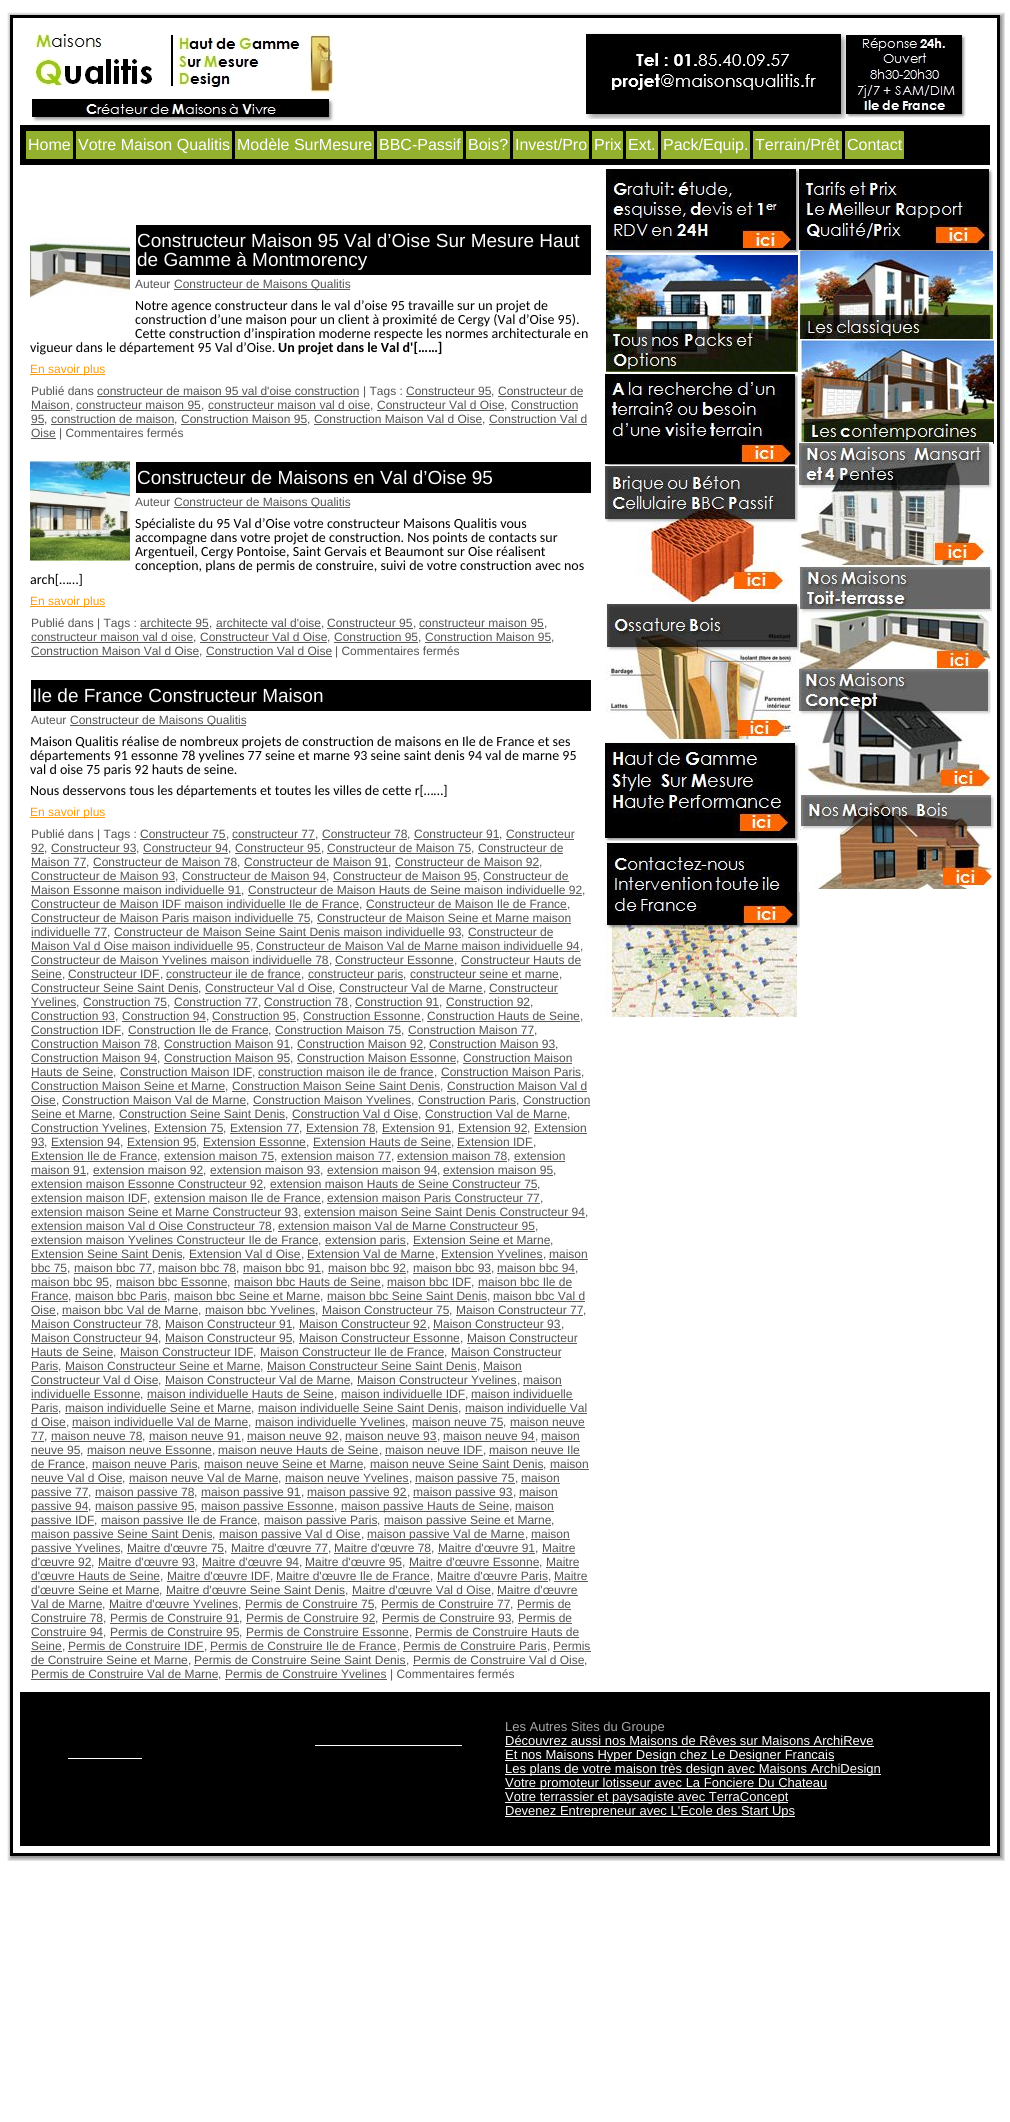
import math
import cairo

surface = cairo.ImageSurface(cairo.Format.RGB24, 1010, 2122)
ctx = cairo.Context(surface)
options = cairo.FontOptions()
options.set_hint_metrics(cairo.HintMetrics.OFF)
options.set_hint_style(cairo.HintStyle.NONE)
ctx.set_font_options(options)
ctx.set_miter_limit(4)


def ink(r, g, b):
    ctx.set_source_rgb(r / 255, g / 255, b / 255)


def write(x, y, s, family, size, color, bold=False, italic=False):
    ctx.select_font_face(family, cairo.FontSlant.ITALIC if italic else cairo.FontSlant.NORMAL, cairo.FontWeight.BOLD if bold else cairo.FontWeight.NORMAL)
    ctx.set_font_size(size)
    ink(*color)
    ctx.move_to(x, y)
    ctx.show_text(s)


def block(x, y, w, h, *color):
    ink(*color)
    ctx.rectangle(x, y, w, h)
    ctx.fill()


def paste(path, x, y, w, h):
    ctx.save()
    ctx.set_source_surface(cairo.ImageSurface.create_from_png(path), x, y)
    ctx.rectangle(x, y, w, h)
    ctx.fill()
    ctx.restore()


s1 = dict(family="Liberation Sans", size=16, color=(255, 255, 255))
s2 = dict(family="Liberation Sans", size=19, color=(255, 255, 255))
s3 = dict(family="Liberation Sans", size=12, color=(84, 84, 84))
s4 = dict(family="Carlito", size=14, color=(0, 0, 0))
s5 = dict(family="Carlito", size=14, color=(0, 0, 0), bold=True)
s6 = dict(family="Liberation Sans", size=12, color=(253, 155, 8))
s7 = dict(family="Liberation Sans", size=13, color=(168, 168, 168))
s8 = dict(family="Liberation Sans", size=13, color=(255, 255, 255))

ink(255, 255, 255)
ctx.paint()
paste("pic1.png", 7, 12, 21, 21)
paste("pic2.png", 28, 12, 954, 6)
paste("pic3.png", 982, 12, 23, 21)
paste("pic4.png", 7, 33, 6, 1805)
paste("pic5.png", 32, 32, 934, 90)
block(20, 125, 970, 40, 0, 0, 0)
block(26, 131, 46, 28, 147, 177, 47)
paste("pic6.png", 72, 131, 1, 28)
write(28, 150, "Home", **s1)
block(76, 131, 155, 28, 147, 177, 47)
paste("pic6.png", 231, 131, 1, 28)
write(78, 150, "Votre Maison Qualitis", **s1)
block(235, 131, 138, 28, 147, 177, 47)
paste("pic6.png", 373, 131, 1, 28)
write(237, 150, "Modèle SurMesure", **s1)
block(377, 131, 85, 28, 147, 177, 47)
paste("pic6.png", 462, 131, 1, 28)
write(379, 150, "BBC-Passif", **s1)
block(466, 131, 43, 28, 147, 177, 47)
paste("pic6.png", 509, 131, 1, 28)
write(468, 150, "Bois?", **s1)
block(513, 131, 75, 28, 147, 177, 47)
paste("pic6.png", 588, 131, 1, 28)
write(515, 150, "Invest/Pro", **s1)
block(592, 131, 30, 28, 147, 177, 47)
paste("pic6.png", 622, 131, 1, 28)
write(594, 150, "Prix", **s1)
block(626, 131, 31, 28, 147, 177, 47)
paste("pic6.png", 657, 131, 1, 28)
write(628, 150, "Ext.", **s1)
block(661, 131, 88, 28, 147, 177, 47)
paste("pic6.png", 749, 131, 1, 28)
write(663, 150, "Pack/Equip.", **s1)
block(753, 131, 88, 28, 147, 177, 47)
paste("pic6.png", 841, 131, 1, 28)
write(755, 150, "Terrain/Prêt", **s1)
block(845, 131, 58, 28, 147, 177, 47)
paste("pic6.png", 903, 131, 1, 28)
write(847, 150, "Contact", **s1)
paste("pic7.png", 30, 237, 100, 62)
block(136, 225, 455, 50, 0, 0, 0)
write(137, 247, "Constructeur Maison 95 Val d’Oise Sur Mesure Haut", **s2)
write(137, 266, "de Gamme à Montmorency", **s2)
write(135, 288, "Auteur", **s3)
block(174, 289, 176, 1, 89, 89, 89)
write(174, 288, "Constructeur de Maisons Qualitis", **s3)
write(135, 310, "Notre agence constructeur dans le val d’oise 95 travaille sur un projet de", **s4)
write(135, 324, "construction d’une maison pour un client à proximité de Cergy (Val d’Oise 95).", **s4)
write(135, 338, "Cette construction d’inspiration moderne respecte les normes architecturale en", **s4)
write(30, 352, "vigueur dans le département 95 Val d’Oise.", **s4)
write(278, 352, "Un projet dans le Val d'[……]", **s5)
block(30, 374, 75, 1, 253, 155, 8)
write(30, 373, "En savoir plus", **s6)
write(31, 395, "Publié dans", **s3)
write(97, 395, "constructeur de maison 95 val d'oise construction", **s3)
block(97, 396, 262, 1, 89, 89, 89)
write(363, 395, "| Tags :", **s3)
write(406, 395, "Constructeur 95", **s3)
block(406, 396, 85, 1, 89, 89, 89)
write(491, 395, ",", **s3)
write(498, 395, "Constructeur de", **s3)
block(498, 396, 85, 1, 89, 89, 89)
write(31, 409, "Maison", **s3)
block(31, 410, 39, 1, 89, 89, 89)
write(70, 409, ",", **s3)
write(76, 409, "constructeur maison 95", **s3)
block(76, 410, 125, 1, 89, 89, 89)
write(201, 409, ",", **s3)
write(208, 409, "constructeur maison val d oise", **s3)
block(208, 410, 162, 1, 89, 89, 89)
write(370, 409, ",", **s3)
write(377, 409, "Constructeur Val d Oise", **s3)
block(377, 410, 127, 1, 89, 89, 89)
write(504, 409, ",", **s3)
write(511, 409, "Construction", **s3)
block(511, 410, 67, 1, 89, 89, 89)
write(31, 423, "95", **s3)
block(31, 424, 13, 1, 89, 89, 89)
write(44, 423, ",", **s3)
write(51, 423, "construction de maison", **s3)
block(51, 424, 123, 1, 89, 89, 89)
write(174, 423, ",", **s3)
write(181, 423, "Construction Maison 95", **s3)
block(181, 424, 126, 1, 89, 89, 89)
write(307, 423, ",", **s3)
write(314, 423, "Construction Maison Val d Oise", **s3)
block(314, 424, 168, 1, 89, 89, 89)
write(482, 423, ",", **s3)
write(489, 423, "Construction Val d", **s3)
block(489, 424, 98, 1, 89, 89, 89)
write(31, 437, "Oise", **s3)
block(31, 438, 25, 1, 89, 89, 89)
write(59, 437, "| Commentaires fermés", **s3)
paste("pic8.png", 30, 461, 100, 100)
block(136, 462, 455, 31, 0, 0, 0)
write(137, 484, "Constructeur de Maisons en Val d’Oise 95", **s2)
write(135, 506, "Auteur", **s3)
block(174, 507, 176, 1, 89, 89, 89)
write(174, 506, "Constructeur de Maisons Qualitis", **s3)
write(135, 528, "Spécialiste du 95 Val d’Oise votre constructeur Maisons Qualitis vous", **s4)
write(135, 542, "accompagne dans votre projet de construction. Nos points de contacts sur", **s4)
write(135, 556, "Argentueil, Cergy Pontoise, Saint Gervais et Beaumont sur Oise réalisent", **s4)
write(135, 570, "conception, plans de permis de construire, suivi de votre construction avec nos", **s4)
write(30, 584, "arch[……]", **s4)
block(30, 606, 75, 1, 253, 155, 8)
write(30, 605, "En savoir plus", **s6)
write(31, 627, "Publié dans | Tags :", **s3)
write(140, 627, "architecte 95", **s3)
block(140, 628, 69, 1, 89, 89, 89)
write(209, 627, ",", **s3)
write(216, 627, "architecte val d'oise", **s3)
block(216, 628, 105, 1, 89, 89, 89)
write(321, 627, ",", **s3)
write(327, 627, "Constructeur 95", **s3)
block(327, 628, 86, 1, 89, 89, 89)
write(413, 627, ",", **s3)
write(419, 627, "constructeur maison 95", **s3)
block(419, 628, 125, 1, 89, 89, 89)
write(544, 627, ",", **s3)
write(31, 641, "constructeur maison val d oise", **s3)
block(31, 642, 162, 1, 89, 89, 89)
write(193, 641, ",", **s3)
write(200, 641, "Constructeur Val d Oise", **s3)
block(200, 642, 127, 1, 89, 89, 89)
write(327, 641, ",", **s3)
write(334, 641, "Construction 95", **s3)
block(334, 642, 84, 1, 89, 89, 89)
write(418, 641, ",", **s3)
write(425, 641, "Construction Maison 95", **s3)
block(425, 642, 126, 1, 89, 89, 89)
write(551, 641, ",", **s3)
write(31, 655, "Construction Maison Val d Oise", **s3)
block(31, 656, 168, 1, 89, 89, 89)
write(199, 655, ",", **s3)
write(206, 655, "Construction Val d Oise", **s3)
block(206, 656, 126, 1, 89, 89, 89)
write(335, 655, "| Commentaires fermés", **s3)
block(31, 680, 560, 31, 0, 0, 0)
write(32, 702, "Ile de France Constructeur Maison", **s2)
write(31, 724, "Auteur", **s3)
block(70, 725, 176, 1, 89, 89, 89)
write(70, 724, "Constructeur de Maisons Qualitis", **s3)
write(30, 746, "Maison Qualitis réalise de nombreux projets de construction de maisons en Ile de France et ses", **s4)
write(30, 760, "départements 91 essonne 78 yvelines 77 seine et marne 93 seine saint denis 94 val de marne 95", **s4)
write(30, 774, "val d oise 75 paris 92 hauts de seine.", **s4)
write(30, 795, "Nous desservons tous les départements et toutes les villes de cette r[……]", **s4)
block(30, 817, 75, 1, 253, 155, 8)
write(30, 816, "En savoir plus", **s6)
write(31, 838, "Publié dans | Tags :", **s3)
write(140, 838, "Constructeur 75", **s3)
block(140, 839, 86, 1, 89, 89, 89)
write(226, 838, ",", **s3)
write(232, 838, "constructeur 77", **s3)
block(232, 839, 83, 1, 89, 89, 89)
write(315, 838, ",", **s3)
write(322, 838, "Constructeur 78", **s3)
block(322, 839, 85, 1, 89, 89, 89)
write(407, 838, ",", **s3)
write(414, 838, "Constructeur 91", **s3)
block(414, 839, 85, 1, 89, 89, 89)
write(499, 838, ",", **s3)
write(506, 838, "Constructeur", **s3)
block(506, 839, 68, 1, 89, 89, 89)
write(31, 852, "92", **s3)
block(31, 853, 13, 1, 89, 89, 89)
write(44, 852, ",", **s3)
write(51, 852, "Constructeur 93", **s3)
block(51, 853, 85, 1, 89, 89, 89)
write(136, 852, ",", **s3)
write(143, 852, "Constructeur 94", **s3)
block(143, 853, 85, 1, 89, 89, 89)
write(228, 852, ",", **s3)
write(235, 852, "Constructeur 95", **s3)
block(235, 853, 86, 1, 89, 89, 89)
write(321, 852, ",", **s3)
write(327, 852, "Constructeur de Maison 75", **s3)
block(327, 853, 144, 1, 89, 89, 89)
write(471, 852, ",", **s3)
write(478, 852, "Constructeur de", **s3)
block(478, 853, 85, 1, 89, 89, 89)
write(31, 866, "Maison 77", **s3)
block(31, 867, 55, 1, 89, 89, 89)
write(86, 866, ",", **s3)
write(93, 866, "Constructeur de Maison 78", **s3)
block(93, 867, 144, 1, 89, 89, 89)
write(237, 866, ",", **s3)
write(244, 866, "Constructeur de Maison 91", **s3)
block(244, 867, 144, 1, 89, 89, 89)
write(388, 866, ",", **s3)
write(395, 866, "Constructeur de Maison 92", **s3)
block(395, 867, 144, 1, 89, 89, 89)
write(539, 866, ",", **s3)
write(31, 880, "Constructeur de Maison 93", **s3)
block(31, 881, 144, 1, 89, 89, 89)
write(175, 880, ",", **s3)
write(182, 880, "Constructeur de Maison 94", **s3)
block(182, 881, 144, 1, 89, 89, 89)
write(326, 880, ",", **s3)
write(333, 880, "Constructeur de Maison 95", **s3)
block(333, 881, 144, 1, 89, 89, 89)
write(477, 880, ",", **s3)
write(483, 880, "Constructeur de", **s3)
block(483, 881, 86, 1, 89, 89, 89)
write(31, 894, "Maison Essonne maison individuelle 91", **s3)
block(31, 895, 210, 1, 89, 89, 89)
write(241, 894, ",", **s3)
write(248, 894, "Constructeur de Maison Hauts de Seine maison individuelle 92", **s3)
block(248, 895, 334, 1, 89, 89, 89)
write(582, 894, ",", **s3)
write(31, 908, "Constructeur de Maison IDF maison individuelle Ile de France", **s3)
block(31, 909, 328, 1, 89, 89, 89)
write(359, 908, ",", **s3)
write(366, 908, "Constructeur de Maison Ile de France", **s3)
block(366, 909, 201, 1, 89, 89, 89)
write(567, 908, ",", **s3)
write(31, 922, "Constructeur de Maison Paris maison individuelle 75", **s3)
block(31, 923, 279, 1, 89, 89, 89)
write(310, 922, ",", **s3)
write(317, 922, "Constructeur de Maison Seine et Marne maison", **s3)
block(317, 923, 254, 1, 89, 89, 89)
write(31, 936, "individuelle 77", **s3)
block(31, 937, 76, 1, 89, 89, 89)
write(107, 936, ",", **s3)
write(114, 936, "Constructeur de Maison Seine Saint Denis maison individuelle 93", **s3)
block(114, 937, 347, 1, 89, 89, 89)
write(461, 936, ",", **s3)
write(468, 936, "Constructeur de", **s3)
block(468, 937, 85, 1, 89, 89, 89)
write(31, 950, "Maison Val d Oise maison individuelle 95", **s3)
block(31, 951, 219, 1, 89, 89, 89)
write(250, 950, ",", **s3)
write(256, 950, "Constructeur de Maison Val de Marne maison individuelle 94", **s3)
block(256, 951, 324, 1, 89, 89, 89)
write(580, 950, ",", **s3)
write(31, 964, "Constructeur de Maison Yvelines maison individuelle 78", **s3)
block(31, 965, 298, 1, 89, 89, 89)
write(329, 964, ",", **s3)
write(335, 964, "Constructeur Essonne", **s3)
block(335, 965, 119, 1, 89, 89, 89)
write(454, 964, ",", **s3)
write(461, 964, "Constructeur Hauts de", **s3)
block(461, 965, 120, 1, 89, 89, 89)
write(31, 978, "Seine", **s3)
block(31, 979, 31, 1, 89, 89, 89)
write(62, 978, ",", **s3)
write(68, 978, "Constructeur IDF", **s3)
block(68, 979, 92, 1, 89, 89, 89)
write(160, 978, ",", **s3)
write(166, 978, "constructeur ile de france", **s3)
block(166, 979, 135, 1, 89, 89, 89)
write(301, 978, ",", **s3)
block(308, 979, 95, 1, 89, 89, 89)
write(308, 978, "constructeur paris", **s3)
write(403, 978, ",", **s3)
write(410, 978, "constructeur seine et marne", **s3)
block(410, 979, 149, 1, 89, 89, 89)
write(559, 978, ",", **s3)
write(31, 992, "Constructeur Seine Saint Denis", **s3)
block(31, 993, 167, 1, 89, 89, 89)
write(198, 992, ",", **s3)
write(205, 992, "Constructeur Val d Oise", **s3)
block(205, 993, 127, 1, 89, 89, 89)
write(332, 992, ",", **s3)
write(339, 992, "Constructeur Val de Marne", **s3)
block(339, 993, 144, 1, 89, 89, 89)
write(483, 992, ",", **s3)
write(489, 992, "Constructeur", **s3)
block(489, 993, 69, 1, 89, 89, 89)
write(31, 1006, "Yvelines", **s3)
block(31, 1007, 45, 1, 89, 89, 89)
write(76, 1006, ",", **s3)
write(83, 1006, "Construction 75", **s3)
block(83, 1007, 84, 1, 89, 89, 89)
write(167, 1006, ",", **s3)
write(174, 1006, "Construction 77", **s3)
block(174, 1007, 84, 1, 89, 89, 89)
write(258, 1006, ",", **s3)
write(264, 1006, "Construction 78", **s3)
block(264, 1007, 85, 1, 89, 89, 89)
write(349, 1006, ",", **s3)
write(355, 1006, "Construction 91", **s3)
block(355, 1007, 84, 1, 89, 89, 89)
write(439, 1006, ",", **s3)
write(446, 1006, "Construction 92", **s3)
block(446, 1007, 84, 1, 89, 89, 89)
write(530, 1006, ",", **s3)
write(31, 1020, "Construction 93", **s3)
block(31, 1021, 84, 1, 89, 89, 89)
write(115, 1020, ",", **s3)
write(122, 1020, "Construction 94", **s3)
block(122, 1021, 84, 1, 89, 89, 89)
write(206, 1020, ",", **s3)
write(212, 1020, "Construction 95", **s3)
block(212, 1021, 84, 1, 89, 89, 89)
write(296, 1020, ",", **s3)
write(303, 1020, "Construction Essonne", **s3)
block(303, 1021, 118, 1, 89, 89, 89)
write(421, 1020, ",", **s3)
write(427, 1020, "Construction Hauts de Seine", **s3)
block(427, 1021, 153, 1, 89, 89, 89)
write(580, 1020, ",", **s3)
write(31, 1034, "Construction IDF", **s3)
block(31, 1035, 90, 1, 89, 89, 89)
write(121, 1034, ",", **s3)
write(128, 1034, "Construction Ile de France", **s3)
block(128, 1035, 140, 1, 89, 89, 89)
write(268, 1034, ",", **s3)
write(275, 1034, "Construction Maison 75", **s3)
block(275, 1035, 126, 1, 89, 89, 89)
write(401, 1034, ",", **s3)
write(408, 1034, "Construction Maison 77", **s3)
block(408, 1035, 126, 1, 89, 89, 89)
write(534, 1034, ",", **s3)
write(31, 1048, "Construction Maison 78", **s3)
block(31, 1049, 126, 1, 89, 89, 89)
write(157, 1048, ",", **s3)
write(164, 1048, "Construction Maison 91", **s3)
block(164, 1049, 126, 1, 89, 89, 89)
write(290, 1048, ",", **s3)
write(297, 1048, "Construction Maison 92", **s3)
block(297, 1049, 126, 1, 89, 89, 89)
write(423, 1048, ",", **s3)
write(429, 1048, "Construction Maison 93", **s3)
block(429, 1049, 126, 1, 89, 89, 89)
write(555, 1048, ",", **s3)
write(31, 1062, "Construction Maison 94", **s3)
block(31, 1063, 126, 1, 89, 89, 89)
write(157, 1062, ",", **s3)
write(164, 1062, "Construction Maison 95", **s3)
block(164, 1063, 126, 1, 89, 89, 89)
write(290, 1062, ",", **s3)
write(297, 1062, "Construction Maison Essonne", **s3)
block(297, 1063, 159, 1, 89, 89, 89)
write(456, 1062, ",", **s3)
write(463, 1062, "Construction Maison", **s3)
block(463, 1063, 109, 1, 89, 89, 89)
write(31, 1076, "Hauts de Seine", **s3)
block(31, 1077, 82, 1, 89, 89, 89)
write(113, 1076, ",", **s3)
write(120, 1076, "Construction Maison IDF", **s3)
block(120, 1077, 132, 1, 89, 89, 89)
write(252, 1076, ",", **s3)
write(258, 1076, "construction maison ile de france", **s3)
block(258, 1077, 176, 1, 89, 89, 89)
write(434, 1076, ",", **s3)
write(441, 1076, "Construction Maison Paris", **s3)
block(441, 1077, 140, 1, 89, 89, 89)
write(581, 1076, ",", **s3)
write(31, 1090, "Construction Maison Seine et Marne", **s3)
block(31, 1091, 194, 1, 89, 89, 89)
write(225, 1090, ",", **s3)
write(232, 1090, "Construction Maison Seine Saint Denis", **s3)
block(232, 1091, 208, 1, 89, 89, 89)
write(440, 1090, ",", **s3)
write(447, 1090, "Construction Maison Val d", **s3)
block(447, 1091, 140, 1, 89, 89, 89)
write(31, 1104, "Oise", **s3)
block(31, 1105, 25, 1, 89, 89, 89)
write(56, 1104, ",", **s3)
write(62, 1104, "Construction Maison Val de Marne", **s3)
block(62, 1105, 184, 1, 89, 89, 89)
write(246, 1104, ",", **s3)
write(253, 1104, "Construction Maison Yvelines", **s3)
block(253, 1105, 158, 1, 89, 89, 89)
write(411, 1104, ",", **s3)
write(418, 1104, "Construction Paris", **s3)
block(418, 1105, 98, 1, 89, 89, 89)
write(516, 1104, ",", **s3)
write(523, 1104, "Construction", **s3)
block(523, 1105, 67, 1, 89, 89, 89)
write(31, 1118, "Seine et Marne", **s3)
block(31, 1119, 81, 1, 89, 89, 89)
write(112, 1118, ",", **s3)
write(119, 1118, "Construction Seine Saint Denis", **s3)
block(119, 1119, 166, 1, 89, 89, 89)
write(285, 1118, ",", **s3)
write(292, 1118, "Construction Val d Oise", **s3)
block(292, 1119, 126, 1, 89, 89, 89)
write(418, 1118, ",", **s3)
write(425, 1118, "Construction Val de Marne", **s3)
block(425, 1119, 142, 1, 89, 89, 89)
write(567, 1118, ",", **s3)
write(31, 1132, "Construction Yvelines", **s3)
block(31, 1133, 116, 1, 89, 89, 89)
write(147, 1132, ",", **s3)
write(154, 1132, "Extension 75", **s3)
block(154, 1133, 69, 1, 89, 89, 89)
write(223, 1132, ",", **s3)
write(230, 1132, "Extension 77", **s3)
block(230, 1133, 69, 1, 89, 89, 89)
write(299, 1132, ",", **s3)
write(306, 1132, "Extension 78", **s3)
block(306, 1133, 69, 1, 89, 89, 89)
write(375, 1132, ",", **s3)
write(382, 1132, "Extension 91", **s3)
block(382, 1133, 69, 1, 89, 89, 89)
write(451, 1132, ",", **s3)
write(458, 1132, "Extension 92", **s3)
block(458, 1133, 69, 1, 89, 89, 89)
write(527, 1132, ",", **s3)
write(534, 1132, "Extension", **s3)
block(534, 1133, 53, 1, 89, 89, 89)
write(31, 1146, "93", **s3)
block(31, 1147, 13, 1, 89, 89, 89)
write(44, 1146, ",", **s3)
write(51, 1146, "Extension 94", **s3)
block(51, 1147, 69, 1, 89, 89, 89)
write(120, 1146, ",", **s3)
write(127, 1146, "Extension 95", **s3)
block(127, 1147, 69, 1, 89, 89, 89)
write(196, 1146, ",", **s3)
write(203, 1146, "Extension Essonne", **s3)
block(203, 1147, 103, 1, 89, 89, 89)
write(306, 1146, ",", **s3)
write(313, 1146, "Extension Hauts de Seine", **s3)
block(313, 1147, 138, 1, 89, 89, 89)
write(451, 1146, ",", **s3)
write(457, 1146, "Extension IDF", **s3)
block(457, 1147, 76, 1, 89, 89, 89)
write(533, 1146, ",", **s3)
write(31, 1160, "Extension Ile de France", **s3)
block(31, 1161, 126, 1, 89, 89, 89)
write(157, 1160, ",", **s3)
write(164, 1160, "extension maison 75", **s3)
block(164, 1161, 110, 1, 89, 89, 89)
write(274, 1160, ",", **s3)
write(281, 1160, "extension maison 77", **s3)
block(281, 1161, 110, 1, 89, 89, 89)
write(391, 1160, ",", **s3)
write(397, 1160, "extension maison 78", **s3)
block(397, 1161, 110, 1, 89, 89, 89)
write(507, 1160, ",", **s3)
write(514, 1160, "extension", **s3)
block(514, 1161, 51, 1, 89, 89, 89)
write(31, 1174, "maison 91", **s3)
block(31, 1175, 55, 1, 89, 89, 89)
write(86, 1174, ",", **s3)
write(93, 1174, "extension maison 92", **s3)
block(93, 1175, 110, 1, 89, 89, 89)
write(203, 1174, ",", **s3)
write(210, 1174, "extension maison 93", **s3)
block(210, 1175, 110, 1, 89, 89, 89)
write(320, 1174, ",", **s3)
write(327, 1174, "extension maison 94", **s3)
block(327, 1175, 110, 1, 89, 89, 89)
write(437, 1174, ",", **s3)
write(443, 1174, "extension maison 95", **s3)
block(443, 1175, 110, 1, 89, 89, 89)
write(553, 1174, ",", **s3)
write(31, 1188, "extension maison Essonne Constructeur 92", **s3)
block(31, 1189, 232, 1, 89, 89, 89)
write(263, 1188, ",", **s3)
write(270, 1188, "extension maison Hauts de Seine Constructeur 75", **s3)
block(270, 1189, 267, 1, 89, 89, 89)
write(537, 1188, ",", **s3)
write(31, 1202, "extension maison IDF", **s3)
block(31, 1203, 116, 1, 89, 89, 89)
write(147, 1202, ",", **s3)
write(154, 1202, "extension maison Ile de France", **s3)
block(154, 1203, 167, 1, 89, 89, 89)
write(321, 1202, ",", **s3)
write(327, 1202, "extension maison Paris Constructeur 77", **s3)
block(327, 1203, 213, 1, 89, 89, 89)
write(540, 1202, ",", **s3)
write(31, 1216, "extension maison Seine et Marne Constructeur 93", **s3)
block(31, 1217, 267, 1, 89, 89, 89)
write(298, 1216, ",", **s3)
write(304, 1216, "extension maison Seine Saint Denis Constructeur 94", **s3)
block(304, 1217, 281, 1, 89, 89, 89)
write(585, 1216, ",", **s3)
write(31, 1230, "extension maison Val d Oise Constructeur 78", **s3)
block(31, 1231, 241, 1, 89, 89, 89)
write(272, 1230, ",", **s3)
write(278, 1230, "extension maison Val de Marne Constructeur 95", **s3)
block(278, 1231, 257, 1, 89, 89, 89)
write(535, 1230, ",", **s3)
write(31, 1244, "extension maison Yvelines Constructeur Ile de France", **s3)
block(31, 1245, 287, 1, 89, 89, 89)
write(318, 1244, ",", **s3)
block(325, 1245, 81, 1, 89, 89, 89)
write(325, 1244, "extension paris", **s3)
write(406, 1244, ",", **s3)
write(413, 1244, "Extension Seine et Marne", **s3)
block(413, 1245, 137, 1, 89, 89, 89)
write(550, 1244, ",", **s3)
write(31, 1258, "Extension Seine Saint Denis", **s3)
block(31, 1259, 151, 1, 89, 89, 89)
write(182, 1258, ",", **s3)
write(189, 1258, "Extension Val d Oise", **s3)
block(189, 1259, 112, 1, 89, 89, 89)
write(301, 1258, ",", **s3)
write(307, 1258, "Extension Val de Marne", **s3)
block(307, 1259, 128, 1, 89, 89, 89)
write(435, 1258, ",", **s3)
write(441, 1258, "Extension Yvelines", **s3)
block(441, 1259, 102, 1, 89, 89, 89)
write(543, 1258, ",", **s3)
write(549, 1258, "maison", **s3)
block(549, 1259, 39, 1, 89, 89, 89)
write(31, 1272, "bbc 75", **s3)
block(31, 1273, 36, 1, 89, 89, 89)
write(67, 1272, ",", **s3)
write(74, 1272, "maison bbc 77", **s3)
block(74, 1273, 78, 1, 89, 89, 89)
write(152, 1272, ",", **s3)
write(158, 1272, "maison bbc 78", **s3)
block(158, 1273, 78, 1, 89, 89, 89)
write(236, 1272, ",", **s3)
write(243, 1272, "maison bbc 91", **s3)
block(243, 1273, 78, 1, 89, 89, 89)
write(321, 1272, ",", **s3)
write(328, 1272, "maison bbc 92", **s3)
block(328, 1273, 78, 1, 89, 89, 89)
write(406, 1272, ",", **s3)
write(413, 1272, "maison bbc 93", **s3)
block(413, 1273, 78, 1, 89, 89, 89)
write(491, 1272, ",", **s3)
write(497, 1272, "maison bbc 94", **s3)
block(497, 1273, 78, 1, 89, 89, 89)
write(575, 1272, ",", **s3)
write(31, 1286, "maison bbc 95", **s3)
block(31, 1287, 78, 1, 89, 89, 89)
write(109, 1286, ",", **s3)
write(116, 1286, "maison bbc Essonne", **s3)
block(116, 1287, 111, 1, 89, 89, 89)
write(227, 1286, ",", **s3)
write(234, 1286, "maison bbc Hauts de Seine", **s3)
block(234, 1287, 147, 1, 89, 89, 89)
write(381, 1286, ",", **s3)
write(387, 1286, "maison bbc IDF", **s3)
block(387, 1287, 84, 1, 89, 89, 89)
write(471, 1286, ",", **s3)
write(478, 1286, "maison bbc Ile de", **s3)
block(478, 1287, 94, 1, 89, 89, 89)
write(31, 1300, "France", **s3)
block(31, 1301, 37, 1, 89, 89, 89)
write(68, 1300, ",", **s3)
write(75, 1300, "maison bbc Paris", **s3)
block(75, 1301, 92, 1, 89, 89, 89)
write(167, 1300, ",", **s3)
write(174, 1300, "maison bbc Seine et Marne", **s3)
block(174, 1301, 146, 1, 89, 89, 89)
write(320, 1300, ",", **s3)
write(327, 1300, "maison bbc Seine Saint Denis", **s3)
block(327, 1301, 160, 1, 89, 89, 89)
write(487, 1300, ",", **s3)
write(493, 1300, "maison bbc Val d", **s3)
block(493, 1301, 92, 1, 89, 89, 89)
write(31, 1314, "Oise", **s3)
block(31, 1315, 25, 1, 89, 89, 89)
write(56, 1314, ",", **s3)
write(62, 1314, "maison bbc Val de Marne", **s3)
block(62, 1315, 136, 1, 89, 89, 89)
write(198, 1314, ",", **s3)
write(205, 1314, "maison bbc Yvelines", **s3)
block(205, 1315, 110, 1, 89, 89, 89)
write(315, 1314, ",", **s3)
write(322, 1314, "Maison Constructeur 75", **s3)
block(322, 1315, 127, 1, 89, 89, 89)
write(449, 1314, ",", **s3)
write(456, 1314, "Maison Constructeur 77", **s3)
block(456, 1315, 127, 1, 89, 89, 89)
write(583, 1314, ",", **s3)
write(31, 1328, "Maison Constructeur 78", **s3)
block(31, 1329, 127, 1, 89, 89, 89)
write(158, 1328, ",", **s3)
write(165, 1328, "Maison Constructeur 91", **s3)
block(165, 1329, 127, 1, 89, 89, 89)
write(292, 1328, ",", **s3)
write(299, 1328, "Maison Constructeur 92", **s3)
block(299, 1329, 128, 1, 89, 89, 89)
write(427, 1328, ",", **s3)
write(433, 1328, "Maison Constructeur 93", **s3)
block(433, 1329, 128, 1, 89, 89, 89)
write(561, 1328, ",", **s3)
write(31, 1342, "Maison Constructeur 94", **s3)
block(31, 1343, 127, 1, 89, 89, 89)
write(158, 1342, ",", **s3)
write(165, 1342, "Maison Constructeur 95", **s3)
block(165, 1343, 127, 1, 89, 89, 89)
write(292, 1342, ",", **s3)
write(299, 1342, "Maison Constructeur Essonne", **s3)
block(299, 1343, 161, 1, 89, 89, 89)
write(460, 1342, ",", **s3)
write(467, 1342, "Maison Constructeur", **s3)
block(467, 1343, 110, 1, 89, 89, 89)
write(31, 1356, "Hauts de Seine", **s3)
block(31, 1357, 82, 1, 89, 89, 89)
write(113, 1356, ",", **s3)
write(120, 1356, "Maison Constructeur IDF", **s3)
block(120, 1357, 133, 1, 89, 89, 89)
write(253, 1356, ",", **s3)
write(260, 1356, "Maison Constructeur Ile de France", **s3)
block(260, 1357, 184, 1, 89, 89, 89)
write(444, 1356, ",", **s3)
write(451, 1356, "Maison Constructeur", **s3)
block(451, 1357, 110, 1, 89, 89, 89)
write(31, 1370, "Paris", **s3)
block(31, 1371, 27, 1, 89, 89, 89)
write(58, 1370, ",", **s3)
write(65, 1370, "Maison Constructeur Seine et Marne", **s3)
block(65, 1371, 195, 1, 89, 89, 89)
write(260, 1370, ",", **s3)
write(267, 1370, "Maison Constructeur Seine Saint Denis", **s3)
block(267, 1371, 210, 1, 89, 89, 89)
write(477, 1370, ",", **s3)
write(483, 1370, "Maison", **s3)
block(483, 1371, 39, 1, 89, 89, 89)
write(31, 1384, "Constructeur Val d Oise", **s3)
block(31, 1385, 127, 1, 89, 89, 89)
write(158, 1384, ",", **s3)
write(165, 1384, "Maison Constructeur Val de Marne", **s3)
block(165, 1385, 185, 1, 89, 89, 89)
write(350, 1384, ",", **s3)
write(357, 1384, "Maison Constructeur Yvelines", **s3)
block(357, 1385, 160, 1, 89, 89, 89)
write(517, 1384, ",", **s3)
write(523, 1384, "maison", **s3)
block(523, 1385, 39, 1, 89, 89, 89)
write(31, 1398, "individuelle Essonne", **s3)
block(31, 1399, 109, 1, 89, 89, 89)
write(140, 1398, ",", **s3)
write(147, 1398, "maison individuelle Hauts de Seine", **s3)
block(147, 1399, 187, 1, 89, 89, 89)
write(334, 1398, ",", **s3)
write(341, 1398, "maison individuelle IDF", **s3)
block(341, 1399, 124, 1, 89, 89, 89)
write(465, 1398, ",", **s3)
write(471, 1398, "maison individuelle", **s3)
block(471, 1399, 102, 1, 89, 89, 89)
write(31, 1412, "Paris", **s3)
block(31, 1413, 27, 1, 89, 89, 89)
write(58, 1412, ",", **s3)
write(65, 1412, "maison individuelle Seine et Marne", **s3)
block(65, 1413, 186, 1, 89, 89, 89)
write(251, 1412, ",", **s3)
write(258, 1412, "maison individuelle Seine Saint Denis", **s3)
block(258, 1413, 200, 1, 89, 89, 89)
write(458, 1412, ",", **s3)
write(465, 1412, "maison individuelle Val", **s3)
block(465, 1413, 122, 1, 89, 89, 89)
write(31, 1426, "d Oise", **s3)
block(31, 1427, 35, 1, 89, 89, 89)
write(66, 1426, ",", **s3)
write(72, 1426, "maison individuelle Val de Marne", **s3)
block(72, 1427, 176, 1, 89, 89, 89)
write(248, 1426, ",", **s3)
write(255, 1426, "maison individuelle Yvelines", **s3)
block(255, 1427, 150, 1, 89, 89, 89)
write(405, 1426, ",", **s3)
write(412, 1426, "maison neuve 75", **s3)
block(412, 1427, 91, 1, 89, 89, 89)
write(503, 1426, ",", **s3)
write(510, 1426, "maison neuve", **s3)
block(510, 1427, 75, 1, 89, 89, 89)
write(31, 1440, "77", **s3)
block(31, 1441, 13, 1, 89, 89, 89)
write(44, 1440, ",", **s3)
write(51, 1440, "maison neuve 78", **s3)
block(51, 1441, 91, 1, 89, 89, 89)
write(142, 1440, ",", **s3)
write(149, 1440, "maison neuve 91", **s3)
block(149, 1441, 92, 1, 89, 89, 89)
write(241, 1440, ",", **s3)
write(247, 1440, "maison neuve 92", **s3)
block(247, 1441, 92, 1, 89, 89, 89)
write(339, 1440, ",", **s3)
write(345, 1440, "maison neuve 93", **s3)
block(345, 1441, 92, 1, 89, 89, 89)
write(437, 1440, ",", **s3)
write(443, 1440, "maison neuve 94", **s3)
block(443, 1441, 92, 1, 89, 89, 89)
write(535, 1440, ",", **s3)
write(541, 1440, "maison", **s3)
block(541, 1441, 39, 1, 89, 89, 89)
write(31, 1454, "neuve 95", **s3)
block(31, 1455, 49, 1, 89, 89, 89)
write(80, 1454, ",", **s3)
write(87, 1454, "maison neuve Essonne", **s3)
block(87, 1455, 125, 1, 89, 89, 89)
write(212, 1454, ",", **s3)
write(218, 1454, "maison neuve Hauts de Seine", **s3)
block(218, 1455, 161, 1, 89, 89, 89)
write(379, 1454, ",", **s3)
write(385, 1454, "maison neuve IDF", **s3)
block(385, 1455, 98, 1, 89, 89, 89)
write(483, 1454, ",", **s3)
write(489, 1454, "maison neuve Ile", **s3)
block(489, 1455, 91, 1, 89, 89, 89)
write(31, 1468, "de France", **s3)
block(31, 1469, 54, 1, 89, 89, 89)
write(85, 1468, ",", **s3)
write(92, 1468, "maison neuve Paris", **s3)
block(92, 1469, 105, 1, 89, 89, 89)
write(197, 1468, ",", **s3)
write(204, 1468, "maison neuve Seine et Marne", **s3)
block(204, 1469, 159, 1, 89, 89, 89)
write(363, 1468, ",", **s3)
write(370, 1468, "maison neuve Seine Saint Denis", **s3)
block(370, 1469, 173, 1, 89, 89, 89)
write(543, 1468, ",", **s3)
write(550, 1468, "maison", **s3)
block(550, 1469, 39, 1, 89, 89, 89)
write(31, 1482, "neuve Val d Oise", **s3)
block(31, 1483, 91, 1, 89, 89, 89)
write(122, 1482, ",", **s3)
write(129, 1482, "maison neuve Val de Marne", **s3)
block(129, 1483, 149, 1, 89, 89, 89)
write(278, 1482, ",", **s3)
write(285, 1482, "maison neuve Yvelines", **s3)
block(285, 1483, 124, 1, 89, 89, 89)
write(409, 1482, ",", **s3)
block(415, 1483, 100, 1, 89, 89, 89)
write(415, 1482, "maison passive 75", **s3)
write(515, 1482, ",", **s3)
write(521, 1482, "maison", **s3)
block(521, 1483, 39, 1, 89, 89, 89)
block(31, 1497, 57, 1, 89, 89, 89)
write(31, 1496, "passive 77", **s3)
write(88, 1496, ",", **s3)
block(95, 1497, 99, 1, 89, 89, 89)
write(95, 1496, "maison passive 78", **s3)
write(194, 1496, ",", **s3)
block(201, 1497, 100, 1, 89, 89, 89)
write(201, 1496, "maison passive 91", **s3)
write(301, 1496, ",", **s3)
block(307, 1497, 100, 1, 89, 89, 89)
write(307, 1496, "maison passive 92", **s3)
write(407, 1496, ",", **s3)
block(413, 1497, 100, 1, 89, 89, 89)
write(413, 1496, "maison passive 93", **s3)
write(513, 1496, ",", **s3)
write(519, 1496, "maison", **s3)
block(519, 1497, 39, 1, 89, 89, 89)
block(31, 1511, 57, 1, 89, 89, 89)
write(31, 1510, "passive 94", **s3)
write(88, 1510, ",", **s3)
block(95, 1511, 99, 1, 89, 89, 89)
write(95, 1510, "maison passive 95", **s3)
write(194, 1510, ",", **s3)
block(201, 1511, 133, 1, 89, 89, 89)
write(201, 1510, "maison passive Essonne", **s3)
write(334, 1510, ",", **s3)
block(341, 1511, 168, 1, 89, 89, 89)
write(341, 1510, "maison passive Hauts de Seine", **s3)
write(509, 1510, ",", **s3)
write(515, 1510, "maison", **s3)
block(515, 1511, 39, 1, 89, 89, 89)
block(31, 1525, 63, 1, 89, 89, 89)
write(31, 1524, "passive IDF", **s3)
write(94, 1524, ",", **s3)
block(101, 1525, 156, 1, 89, 89, 89)
write(101, 1524, "maison passive Ile de France", **s3)
write(257, 1524, ",", **s3)
block(264, 1525, 113, 1, 89, 89, 89)
write(264, 1524, "maison passive Paris", **s3)
write(377, 1524, ",", **s3)
block(384, 1525, 167, 1, 89, 89, 89)
write(384, 1524, "maison passive Seine et Marne", **s3)
write(551, 1524, ",", **s3)
block(31, 1539, 181, 1, 89, 89, 89)
write(31, 1538, "maison passive Seine Saint Denis", **s3)
write(212, 1538, ",", **s3)
block(219, 1539, 142, 1, 89, 89, 89)
write(219, 1538, "maison passive Val d Oise", **s3)
write(361, 1538, ",", **s3)
block(367, 1539, 158, 1, 89, 89, 89)
write(367, 1538, "maison passive Val de Marne", **s3)
write(525, 1538, ",", **s3)
write(531, 1538, "maison", **s3)
block(531, 1539, 39, 1, 89, 89, 89)
block(31, 1553, 89, 1, 89, 89, 89)
write(31, 1552, "passive Yvelines", **s3)
write(120, 1552, ",", **s3)
write(127, 1552, "Maitre d'œuvre 75", **s3)
block(127, 1553, 97, 1, 89, 89, 89)
write(224, 1552, ",", **s3)
write(231, 1552, "Maitre d'œuvre 77", **s3)
block(231, 1553, 97, 1, 89, 89, 89)
write(328, 1552, ",", **s3)
write(334, 1552, "Maitre d'œuvre 78", **s3)
block(334, 1553, 97, 1, 89, 89, 89)
write(431, 1552, ",", **s3)
write(438, 1552, "Maitre d'œuvre 91", **s3)
block(438, 1553, 97, 1, 89, 89, 89)
write(535, 1552, ",", **s3)
write(542, 1552, "Maitre", **s3)
block(542, 1553, 33, 1, 89, 89, 89)
write(31, 1566, "d'œuvre 92", **s3)
block(31, 1567, 60, 1, 89, 89, 89)
write(91, 1566, ",", **s3)
write(98, 1566, "Maitre d'œuvre 93", **s3)
block(98, 1567, 97, 1, 89, 89, 89)
write(195, 1566, ",", **s3)
write(202, 1566, "Maitre d'œuvre 94", **s3)
block(202, 1567, 97, 1, 89, 89, 89)
write(299, 1566, ",", **s3)
write(305, 1566, "Maitre d'œuvre 95", **s3)
block(305, 1567, 97, 1, 89, 89, 89)
write(402, 1566, ",", **s3)
write(409, 1566, "Maitre d'œuvre Essonne", **s3)
block(409, 1567, 130, 1, 89, 89, 89)
write(539, 1566, ",", **s3)
write(546, 1566, "Maitre", **s3)
block(546, 1567, 33, 1, 89, 89, 89)
write(31, 1580, "d'œuvre Hauts de Seine", **s3)
block(31, 1581, 129, 1, 89, 89, 89)
write(160, 1580, ",", **s3)
write(167, 1580, "Maitre d'œuvre IDF", **s3)
block(167, 1581, 103, 1, 89, 89, 89)
write(270, 1580, ",", **s3)
write(276, 1580, "Maitre d'œuvre Ile de France", **s3)
block(276, 1581, 154, 1, 89, 89, 89)
write(430, 1580, ",", **s3)
write(437, 1580, "Maitre d'œuvre Paris", **s3)
block(437, 1581, 111, 1, 89, 89, 89)
write(548, 1580, ",", **s3)
write(554, 1580, "Maitre", **s3)
block(554, 1581, 34, 1, 89, 89, 89)
write(31, 1594, "d'œuvre Seine et Marne", **s3)
block(31, 1595, 128, 1, 89, 89, 89)
write(159, 1594, ",", **s3)
write(166, 1594, "Maitre d'œuvre Seine Saint Denis", **s3)
block(166, 1595, 179, 1, 89, 89, 89)
write(345, 1594, ",", **s3)
write(352, 1594, "Maitre d'œuvre Val d Oise", **s3)
block(352, 1595, 139, 1, 89, 89, 89)
write(491, 1594, ",", **s3)
write(497, 1594, "Maitre d'œuvre", **s3)
block(497, 1595, 81, 1, 89, 89, 89)
write(31, 1608, "Val de Marne", **s3)
block(31, 1609, 71, 1, 89, 89, 89)
write(102, 1608, ",", **s3)
write(109, 1608, "Maitre d'œuvre Yvelines", **s3)
block(109, 1609, 129, 1, 89, 89, 89)
write(238, 1608, ",", **s3)
write(245, 1608, "Permis de Construire 75", **s3)
block(245, 1609, 129, 1, 89, 89, 89)
write(374, 1608, ",", **s3)
write(381, 1608, "Permis de Construire 77", **s3)
block(381, 1609, 129, 1, 89, 89, 89)
write(510, 1608, ",", **s3)
write(517, 1608, "Permis de", **s3)
block(517, 1609, 54, 1, 89, 89, 89)
write(31, 1622, "Construire 78", **s3)
block(31, 1623, 72, 1, 89, 89, 89)
write(103, 1622, ",", **s3)
write(110, 1622, "Permis de Construire 91", **s3)
block(110, 1623, 129, 1, 89, 89, 89)
write(239, 1622, ",", **s3)
write(246, 1622, "Permis de Construire 92", **s3)
block(246, 1623, 129, 1, 89, 89, 89)
write(375, 1622, ",", **s3)
write(382, 1622, "Permis de Construire 93", **s3)
block(382, 1623, 129, 1, 89, 89, 89)
write(511, 1622, ",", **s3)
write(518, 1622, "Permis de", **s3)
block(518, 1623, 54, 1, 89, 89, 89)
write(31, 1636, "Construire 94", **s3)
block(31, 1637, 72, 1, 89, 89, 89)
write(103, 1636, ",", **s3)
write(110, 1636, "Permis de Construire 95", **s3)
block(110, 1637, 129, 1, 89, 89, 89)
write(239, 1636, ",", **s3)
write(246, 1636, "Permis de Construire Essonne", **s3)
block(246, 1637, 163, 1, 89, 89, 89)
write(409, 1636, ",", **s3)
write(415, 1636, "Permis de Construire Hauts de", **s3)
block(415, 1637, 164, 1, 89, 89, 89)
write(31, 1650, "Seine", **s3)
block(31, 1651, 31, 1, 89, 89, 89)
write(62, 1650, ",", **s3)
write(68, 1650, "Permis de Construire IDF", **s3)
block(68, 1651, 136, 1, 89, 89, 89)
write(204, 1650, ",", **s3)
write(210, 1650, "Permis de Construire Ile de France", **s3)
block(210, 1651, 187, 1, 89, 89, 89)
write(397, 1650, ",", **s3)
write(403, 1650, "Permis de Construire Paris", **s3)
block(403, 1651, 144, 1, 89, 89, 89)
write(547, 1650, ",", **s3)
write(553, 1650, "Permis", **s3)
block(553, 1651, 38, 1, 89, 89, 89)
write(31, 1664, "de Construire Seine et Marne", **s3)
block(31, 1665, 157, 1, 89, 89, 89)
write(188, 1664, ",", **s3)
write(194, 1664, "Permis de Construire Seine Saint Denis", **s3)
block(194, 1665, 212, 1, 89, 89, 89)
write(406, 1664, ",", **s3)
write(413, 1664, "Permis de Construire Val d Oise", **s3)
block(413, 1665, 171, 1, 89, 89, 89)
write(584, 1664, ",", **s3)
write(31, 1678, "Permis de Construire Val de Marne", **s3)
block(31, 1679, 187, 1, 89, 89, 89)
write(218, 1678, ",", **s3)
write(225, 1678, "Permis de Construire Yvelines", **s3)
block(225, 1679, 162, 1, 89, 89, 89)
write(390, 1678, "| Commentaires fermés", **s3)
paste("pic9.png", 605, 168, 194, 85)
paste("pic10.png", 605, 255, 193, 117)
paste("pic11.png", 605, 374, 193, 91)
paste("pic12.png", 605, 465, 193, 137)
paste("pic13.png", 605, 602, 194, 139)
paste("pic14.png", 605, 741, 194, 100)
paste("pic15.png", 605, 841, 195, 177)
paste("pic16.png", 799, 168, 194, 83)
paste("pic17.png", 799, 251, 194, 88)
paste("pic18.png", 799, 339, 195, 105)
paste("pic19.png", 799, 442, 194, 126)
paste("pic20.png", 799, 566, 193, 105)
paste("pic21.png", 799, 669, 192, 124)
paste("pic22.png", 799, 793, 195, 99)
paste("pic24.png", 7, 1838, 21, 23)
paste("pic26.png", 982, 1838, 23, 23)
block(20, 1692, 970, 154, 0, 0, 0)
block(315, 1745, 147, 1, 255, 255, 255)
block(68, 1758, 74, 1, 255, 255, 255)
write(505, 1731, "Les Autres Sites du Groupe", **s7)
write(505, 1745, "Découvrez aussi nos Maisons de Rêves sur Maisons ArchiReve", **s8)
block(505, 1746, 369, 1, 255, 255, 255)
block(505, 1760, 329, 1, 255, 255, 255)
write(505, 1759, "Et nos Maisons Hyper Design chez Le Designer Francais", **s8)
block(505, 1774, 376, 1, 255, 255, 255)
write(505, 1773, "Les plans de votre maison très design avec Maisons ArchiDesign", **s8)
block(505, 1788, 322, 1, 255, 255, 255)
write(505, 1787, "Votre promoteur lotisseur avec La Fonciere Du Chateau", **s8)
block(505, 1802, 283, 1, 255, 255, 255)
write(505, 1801, "Votre terrassier et paysagiste avec TerraConcept", **s8)
block(505, 1816, 290, 1, 255, 255, 255)
write(505, 1815, "Devenez Entrepreneur avec L'Ecole des Start Ups", **s8)
paste("pic23.png", 997, 33, 8, 1805)
paste("pic25.png", 28, 1853, 954, 8)
surface.write_to_png("screenshot.png")
